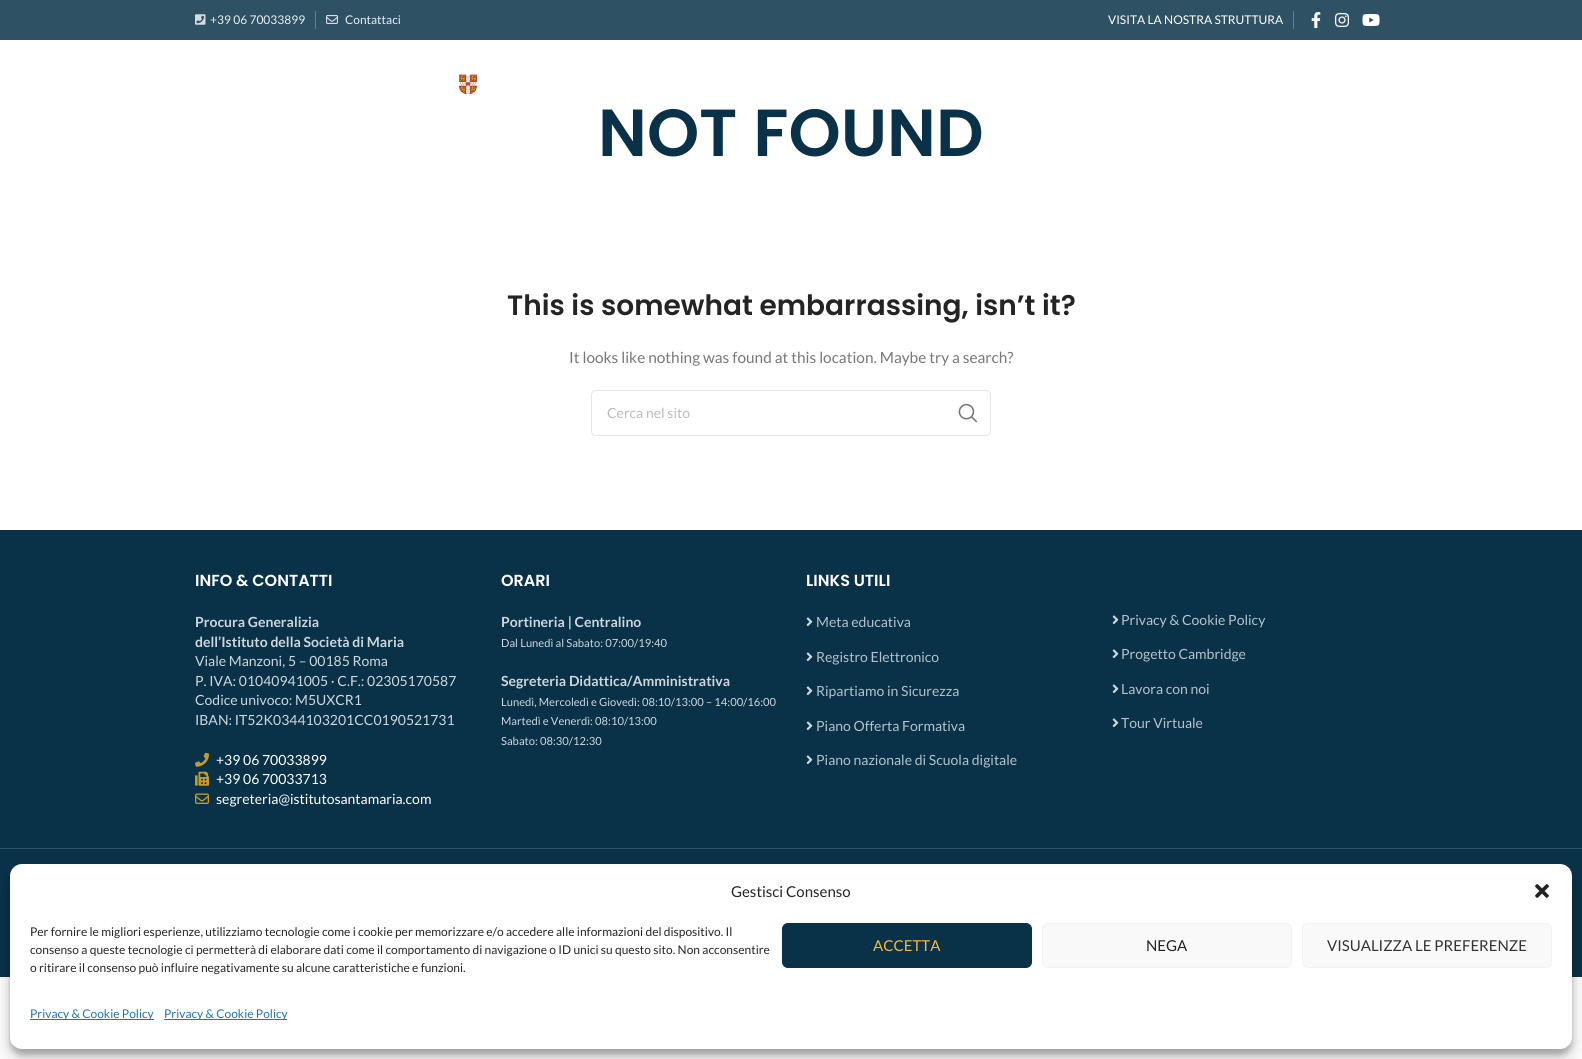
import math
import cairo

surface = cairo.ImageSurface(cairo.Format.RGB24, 1582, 1059)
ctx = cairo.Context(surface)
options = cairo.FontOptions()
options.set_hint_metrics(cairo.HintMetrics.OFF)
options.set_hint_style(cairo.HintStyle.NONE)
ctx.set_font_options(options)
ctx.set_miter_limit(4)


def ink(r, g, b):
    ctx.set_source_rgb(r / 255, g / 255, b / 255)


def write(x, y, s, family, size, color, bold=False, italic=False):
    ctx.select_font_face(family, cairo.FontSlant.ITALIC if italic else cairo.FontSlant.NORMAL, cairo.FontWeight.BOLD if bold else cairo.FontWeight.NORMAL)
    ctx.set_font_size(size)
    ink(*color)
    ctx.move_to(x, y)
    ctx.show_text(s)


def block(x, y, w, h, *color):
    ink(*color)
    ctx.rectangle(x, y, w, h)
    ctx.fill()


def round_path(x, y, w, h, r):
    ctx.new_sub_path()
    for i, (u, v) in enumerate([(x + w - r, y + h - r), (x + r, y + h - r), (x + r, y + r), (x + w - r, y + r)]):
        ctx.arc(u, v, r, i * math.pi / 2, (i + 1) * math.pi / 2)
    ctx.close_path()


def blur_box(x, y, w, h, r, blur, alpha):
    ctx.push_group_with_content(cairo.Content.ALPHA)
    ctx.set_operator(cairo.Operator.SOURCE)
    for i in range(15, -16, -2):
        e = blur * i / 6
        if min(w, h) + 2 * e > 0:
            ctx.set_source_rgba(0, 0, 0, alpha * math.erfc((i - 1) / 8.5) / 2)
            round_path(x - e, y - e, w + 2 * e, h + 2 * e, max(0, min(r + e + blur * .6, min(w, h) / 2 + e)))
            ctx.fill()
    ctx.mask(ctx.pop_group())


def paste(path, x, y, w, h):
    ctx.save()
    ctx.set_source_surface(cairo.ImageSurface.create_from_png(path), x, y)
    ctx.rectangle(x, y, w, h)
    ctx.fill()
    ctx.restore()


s1 = dict(family="Lato", size=12, color=(234, 238, 240))
s2 = dict(family="Lato", size=12, color=(255, 255, 255))
s3 = dict(family="Poppins SemiBold", size=66.5, color=(9, 50, 73))
s4 = dict(family="Poppins SemiBold", size=28, color=(36, 36, 36))
s5 = dict(family="Lato", size=15.4, color=(119, 119, 119))
s6 = dict(family="Lato", size=14, color=(187, 187, 187))
s7 = dict(family="Poppins SemiBold", size=16, color=(255, 255, 255))
s8 = dict(family="Lato", size=14, color=(206, 214, 219), bold=True)
s9 = dict(family="Lato", size=14, color=(206, 214, 219))
s10 = dict(family="Lato", size=14, color=(255, 255, 255))
s11 = dict(family="Lato", size=11.2, color=(206, 214, 219))
s12 = dict(family="Lato", size=14, color=(181, 194, 200))
s13 = dict(family="Lato", size=15, color=(36, 36, 36))
s14 = dict(family="Lato", size=12, color=(36, 36, 36))
s15 = dict(family="Lato", size=15, color=(247, 185, 52))
s16 = dict(family="Lato", size=15, color=(51, 51, 51))
s17 = dict(family="Lato", size=12, color=(30, 115, 190))

ink(255, 255, 255)
ctx.paint()
block(0, 0, 1582, 40, 46, 81, 100)
paste("pic1.png", 195, 14, 11, 11)
write(210, 24, "+39 06 70033899", **s1)
block(315, 11, 1, 18, 98, 125, 139)
paste("pic2.png", 326, 15, 12, 9)
write(345, 24, "Contattaci", **s1)
write(1108, 24, "VISITA LA NOSTRA STRUTTURA", **s2)
block(1293, 11, 1, 18, 98, 125, 139)
paste("pic3.png", 1311, 12, 10, 16)
paste("pic4.png", 1335, 13, 14, 14)
paste("pic5.png", 1362, 14, 18, 12)
paste("pic6.png", 459, 74, 19, 21)
write(598, 156, "NOT FOUND", **s3)
write(507, 315, "This is somewhat embarrassing, isn’t it?", **s4)
write(569, 363, "It looks like nothing was found at this location. Maybe try a search?", **s5)
round_path(591.5, 390.5, 399, 45, 4.5)
ink(230, 230, 230)
ctx.set_line_width(1)
ctx.stroke()
write(607, 418, "Cerca nel sito", **s6)
paste("pic7.png", 958, 403, 20, 20)
block(0, 530, 1582, 447, 9, 50, 73)
write(195, 586, "INFO & CONTATTI", **s7)
write(195, 627, "Procura Generalizia", **s8)
write(195, 647, "dell’Istituto della Società di Maria", **s8)
write(195, 666, "Viale Manzoni, 5 – 00185 Roma", **s9)
write(195, 686, "P. IVA: 01040941005 · C.F.: 02305170587", **s9)
write(195, 705, "Codice univoco: M5UXCR1", **s9)
write(195, 725, "IBAN: IT52K0344103201CC0190521731", **s9)
paste("pic8.png", 195, 752, 14, 15)
write(216, 765, "+39 06 70033899", **s10)
paste("pic9.png", 195, 771, 14, 15)
write(216, 784, "+39 06 70033713", **s10)
paste("pic10.png", 195, 793, 14, 11)
write(216, 804, "segreteria@istitutosantamaria.com", **s10)
write(501, 586, "ORARI", **s7)
write(501, 627, "Portineria | Centralino", **s8)
write(501, 647, "Dal Lunedì al Sabato: 07:00/19:40", **s11)
write(501, 686, "Segreteria Didattica/Amministrativa", **s8)
write(501, 706, "Lunedì, Mercoledì e Giovedì: 08:10/13:00 – 14:00/16:00", **s11)
write(501, 725, "Martedì e Venerdì: 08:10/13:00", **s11)
write(501, 745, "Sabato: 08:30/12:30", **s11)
write(806, 586, "LINKS UTILI", **s7)
paste("pic11.png", 806, 617, 7, 10)
write(816, 627, "Meta educativa", **s12)
paste("pic11.png", 806, 652, 7, 10)
write(816, 662, "Registro Elettronico", **s12)
paste("pic11.png", 806, 686, 7, 10)
write(816, 696, "Ripartiamo in Sicurezza", **s12)
paste("pic11.png", 806, 721, 7, 10)
write(816, 731, "Piano Offerta Formativa", **s12)
paste("pic11.png", 806, 755, 7, 10)
write(816, 765, "Piano nazionale di Scuola digitale", **s12)
paste("pic11.png", 1112, 615, 7, 10)
write(1121, 625, "Privacy & Cookie Policy", **s12)
paste("pic11.png", 1112, 649, 7, 10)
write(1121, 659, "Progetto Cambridge", **s12)
paste("pic11.png", 1112, 684, 7, 10)
write(1121, 694, "Lavora con noi", **s12)
paste("pic11.png", 1112, 718, 7, 10)
write(1121, 728, "Tour Virtuale", **s12)
block(0, 848, 1582, 1, 46, 81, 100)
ink(0, 0, 0)
blur_box(10, 870, 1562, 185, 12, 3, 0.23)
blur_box(10, 874, 1562, 185, 12, 10, 0.19)
ink(255, 255, 255)
round_path(10, 864, 1562, 185, 12)
ctx.fill()
write(731, 897, "Gestisci Consenso", **s13)
paste("pic12.png", 1535, 884, 14, 14)
write(30, 936, "Per fornire le migliori esperienze, utilizziamo tecnologie come i cookie per memorizzare e/o accedere alle informazioni del dispositivo. Il", **s14)
write(30, 954, "consenso a queste tecnologie ci permetterà di elaborare dati come il comportamento di navigazione o ID unici su questo sito. Non acconsentire", **s14)
write(30, 972, "o ritirare il consenso può influire negativamente su alcune caratteristiche e funzioni.", **s14)
ink(9, 50, 73)
round_path(782.5, 923.5, 249, 44, 5.5)
ctx.fill_preserve()
ctx.stroke()
write(873, 951, "ACCETTA", **s15)
ink(249, 249, 249)
round_path(1042.5, 923.5, 249, 44, 5.5)
ctx.fill_preserve()
ink(242, 242, 242)
ctx.stroke()
write(1146, 951, "NEGA", **s13)
ink(249, 249, 249)
round_path(1302.5, 923.5, 249, 44, 5.5)
ctx.fill_preserve()
ink(242, 242, 242)
ctx.stroke()
write(1327, 951, "VISUALIZZA LE PREFERENZE", **s16)
block(30, 1019, 124, 1, 30, 115, 190)
write(30, 1018, "Privacy & Cookie Policy", **s17)
block(164, 1019, 123, 1, 30, 115, 190)
write(164, 1018, "Privacy & Cookie Policy", **s17)
surface.write_to_png("screenshot.png")
